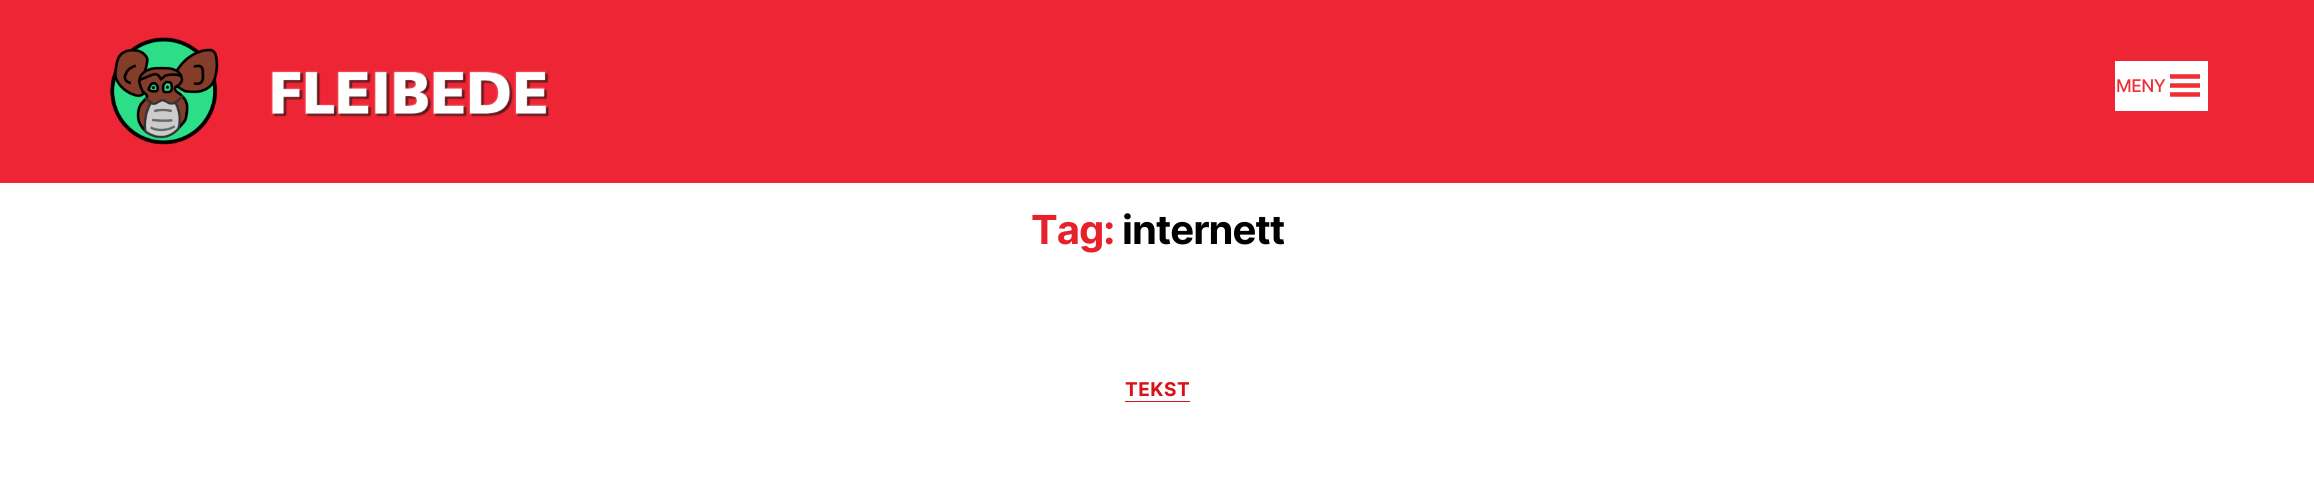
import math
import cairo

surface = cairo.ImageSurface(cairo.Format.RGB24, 2314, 492)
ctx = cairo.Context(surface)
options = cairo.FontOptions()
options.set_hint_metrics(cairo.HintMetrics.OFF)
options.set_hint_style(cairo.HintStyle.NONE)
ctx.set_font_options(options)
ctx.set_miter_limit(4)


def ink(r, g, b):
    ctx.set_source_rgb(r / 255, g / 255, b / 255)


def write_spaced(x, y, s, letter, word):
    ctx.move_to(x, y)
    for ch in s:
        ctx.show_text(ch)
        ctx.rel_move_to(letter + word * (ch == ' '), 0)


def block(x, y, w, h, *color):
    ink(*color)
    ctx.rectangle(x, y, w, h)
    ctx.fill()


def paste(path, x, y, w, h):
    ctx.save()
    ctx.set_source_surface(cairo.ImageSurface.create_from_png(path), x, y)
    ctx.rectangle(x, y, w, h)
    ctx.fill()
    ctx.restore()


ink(255, 255, 255)
ctx.paint()
block(0, 0, 2314, 183, 238, 37, 52)
paste("pic1.png", 110, 37, 439, 108)
block(2115, 61, 93, 50, 255, 255, 255)
ctx.select_font_face("Inter Medium")
ctx.set_font_size(17.5)
ink(239, 45, 50)
write_spaced(2116, 92, "MENY", -0.5, 0)
paste("pic2.png", 2170, 74, 30, 23)
ctx.select_font_face("Inter", cairo.FontSlant.NORMAL, cairo.FontWeight.BOLD)
ctx.set_font_size(40)
ink(231, 33, 43)
write_spaced(1031, 244, "Tag:", -1, 0)
ink(0, 0, 0)
write_spaced(1122, 244, "internett", -1, 0)
block(1125, 401, 65, 1, 217, 17, 27)
ctx.set_font_size(19)
write_spaced(1125, 396, "TEKST", 0.5, 0)
surface.write_to_png("screenshot.png")
